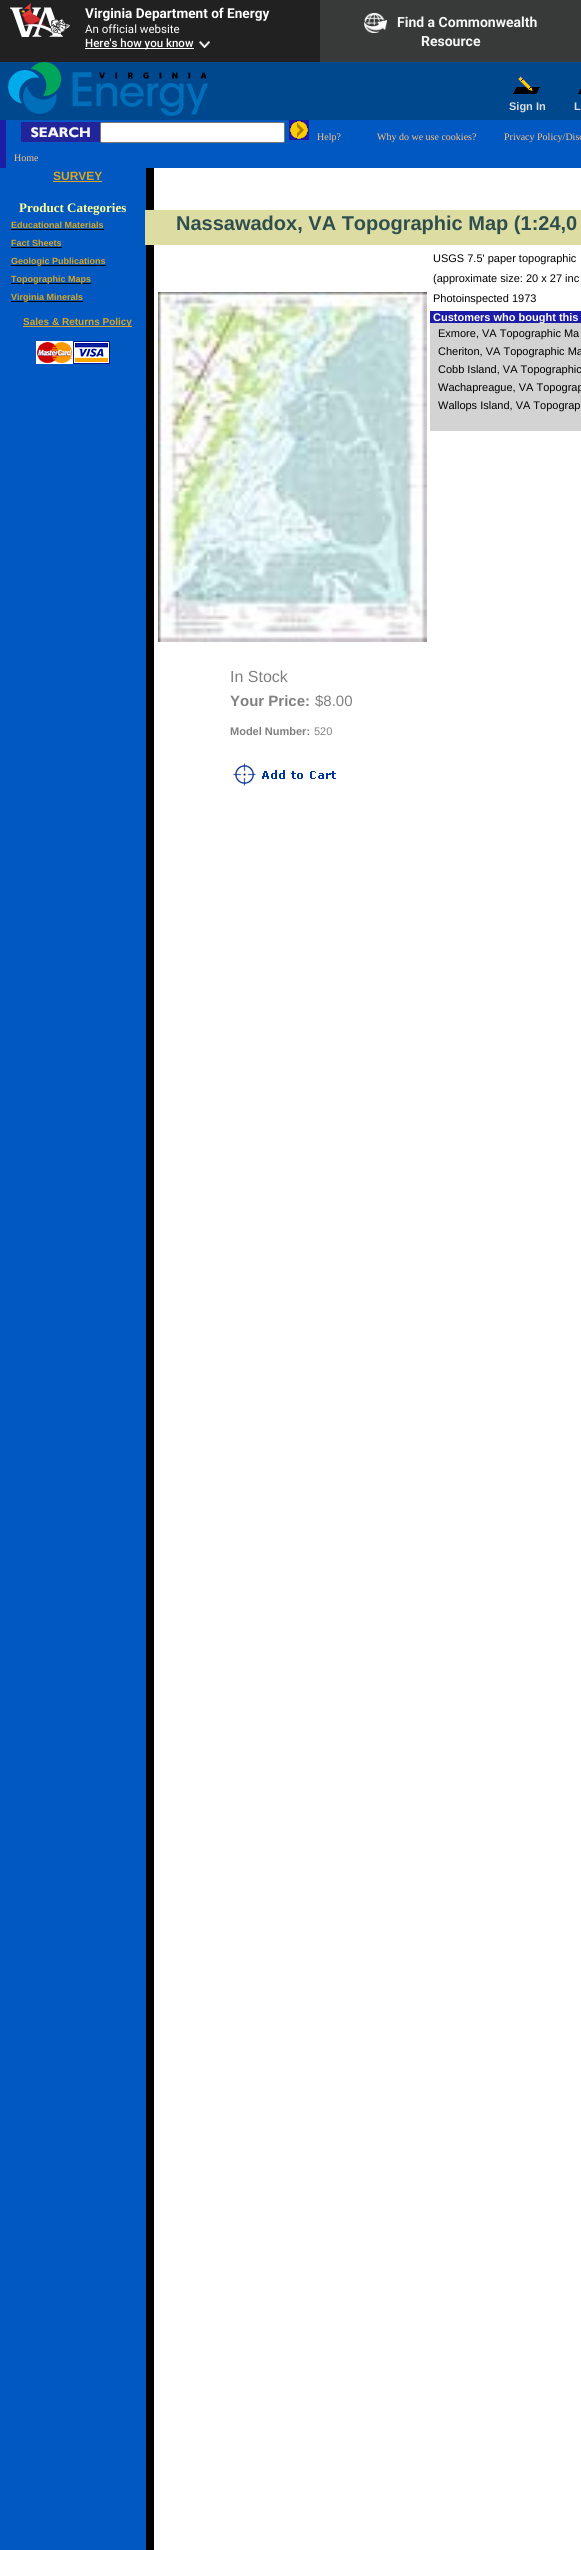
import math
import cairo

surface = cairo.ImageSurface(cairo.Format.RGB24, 581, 2550)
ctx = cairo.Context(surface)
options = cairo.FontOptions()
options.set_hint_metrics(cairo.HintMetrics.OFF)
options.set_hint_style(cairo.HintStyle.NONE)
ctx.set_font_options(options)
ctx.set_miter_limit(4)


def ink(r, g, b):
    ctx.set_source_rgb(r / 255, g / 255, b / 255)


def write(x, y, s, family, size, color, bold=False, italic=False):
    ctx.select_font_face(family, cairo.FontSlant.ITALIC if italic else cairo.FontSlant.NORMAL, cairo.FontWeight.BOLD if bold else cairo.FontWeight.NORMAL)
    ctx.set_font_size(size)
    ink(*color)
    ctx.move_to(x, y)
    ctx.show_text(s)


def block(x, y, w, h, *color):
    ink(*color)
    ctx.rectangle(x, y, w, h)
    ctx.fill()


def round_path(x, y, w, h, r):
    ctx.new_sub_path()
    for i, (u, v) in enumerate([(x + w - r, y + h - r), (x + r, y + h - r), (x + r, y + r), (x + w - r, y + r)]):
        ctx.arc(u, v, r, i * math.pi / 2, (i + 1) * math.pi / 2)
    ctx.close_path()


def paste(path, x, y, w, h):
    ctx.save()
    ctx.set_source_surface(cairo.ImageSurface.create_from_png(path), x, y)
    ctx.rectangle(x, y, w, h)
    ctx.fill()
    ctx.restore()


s1 = dict(family="Roboto", size=13.6, color=(255, 255, 255), bold=True)
s2 = dict(family="Roboto", size=11.5, color=(255, 255, 255))
s3 = dict(family="Roboto Medium", size=11.5, color=(255, 255, 255))
s4 = dict(family="Roboto", size=14, color=(246, 246, 246), bold=True)
s5 = dict(family="Liberation Sans", size=11, color=(221, 221, 221), bold=True)
s6 = dict(family="Liberation Serif", size=10, color=(255, 192, 128))
s7 = dict(family="Liberation Sans", size=12, color=(218, 165, 32), bold=True)
s8 = dict(family="Liberation Serif", size=13, color=(255, 255, 153), bold=True)
s9 = dict(family="Liberation Sans", size=9, color=(218, 165, 32), bold=True)
s10 = dict(family="Liberation Sans", size=10, color=(218, 165, 32), bold=True)
s11 = dict(family="Liberation Sans", size=20, color=(47, 79, 79), bold=True)
s12 = dict(family="Liberation Sans", size=11, color=(0, 0, 0))
s13 = dict(family="Liberation Sans", size=11, color=(255, 255, 255), bold=True)
s14 = dict(family="Liberation Sans", size=16, color=(128, 128, 128))
s15 = dict(family="Liberation Sans", size=15, color=(128, 128, 128), bold=True)
s16 = dict(family="Liberation Sans", size=15, color=(128, 128, 128))
s17 = dict(family="Liberation Sans", size=11, color=(128, 128, 128), bold=True)
s18 = dict(family="Liberation Sans", size=11, color=(128, 128, 128))

ink(255, 255, 255)
ctx.paint()
paste("pic1.png", 0, 168, 154, 2382)
block(0, 0, 320, 62, 33, 33, 33)
paste("pic2.png", 10, 3, 60, 34)
write(85, 18, "Virginia Department of Energy", **s1)
write(85, 33, "An official website", **s2)
block(85, 48, 109, 1, 255, 255, 255)
write(85, 47, "Here's how you know", **s3)
paste("pic3.png", 199, 41, 11, 7)
block(320, 0, 261, 62, 56, 57, 57)
paste("pic4.png", 364, 13, 23, 20)
write(397, 27, "Find a Commonwealth", **s4)
write(421, 46, "Resource", **s4)
block(0, 62, 581, 58, 0, 72, 142)
paste("pic5.png", 8, 62, 200, 54)
paste("pic6.png", 513, 76, 27, 18)
write(509, 110, "Sign In", **s5)
paste("pic7.png", 578, 89, 3, 5)
write(574, 110, "L", **s5)
block(6, 120, 575, 48, 0, 88, 192)
block(0, 120, 6, 48, 28, 28, 166)
paste("pic8.png", 21, 122, 79, 20)
ink(255, 255, 255)
round_path(100.5, 122.5, 184, 20, 1.5)
ctx.fill_preserve()
ink(118, 118, 118)
ctx.set_line_width(1)
ctx.stroke()
paste("pic9.png", 289, 120, 20, 20)
write(317, 140, "Help?", **s6)
write(377, 140, "Why do we use cookies?", **s6)
write(504, 140, "Privacy Policy/Disc", **s6)
write(14, 161, "Home", **s6)
write(53, 180, "SURVEY", **s7)
block(53, 181, 49, 1, 218, 165, 32)
write(19, 212, "Product Categories", **s8)
write(11, 228, "Educational Materials", **s9)
block(11, 229, 93, 1, 0, 0, 0)
write(11, 246, "Fact Sheets", **s9)
block(11, 247, 51, 1, 0, 0, 0)
block(11, 265, 95, 1, 0, 0, 0)
write(11, 264, "Geologic Publications", **s9)
block(11, 283, 80, 1, 0, 0, 0)
write(11, 282, "Topographic Maps", **s9)
block(11, 301, 72, 1, 0, 0, 0)
write(11, 300, "Virginia Minerals", **s9)
block(23, 326, 109, 1, 218, 165, 32)
write(23, 325, "Sales & Returns Policy", **s10)
paste("pic10.png", 36, 341, 37, 23)
paste("pic11.png", 73, 341, 37, 23)
block(145, 210, 436, 35, 221, 220, 163)
write(176, 230, "Nassawadox, VA Topographic Map (1:24,0", **s11)
write(433, 262, "USGS 7.5' paper topographic", **s12)
write(433, 282, "(approximate size: 20 x 27 inc", **s12)
write(433, 302, "Photoinspected 1973", **s12)
block(430, 311, 151, 12, 28, 28, 166)
block(430, 323, 151, 108, 211, 211, 211)
write(433, 321, "Customers who bought this", **s13)
write(438, 337, "Exmore, VA Topographic Ma", **s12)
write(438, 355, "Cheriton, VA Topographic Ma", **s12)
write(438, 373, "Cobb Island, VA Topographic", **s12)
write(438, 391, "Wachapreague, VA Topograp", **s12)
write(438, 409, "Wallops Island, VA Topograp", **s12)
paste("pic12.png", 158, 292, 269, 350)
write(230, 682, "In Stock", **s14)
write(230, 706, "Your Price:", **s15)
write(315, 706, "$8.00", **s16)
write(230, 735, "Model Number:", **s17)
write(314, 735, "520", **s18)
paste("pic13.png", 233, 763, 103, 23)
surface.write_to_png("screenshot.png")
